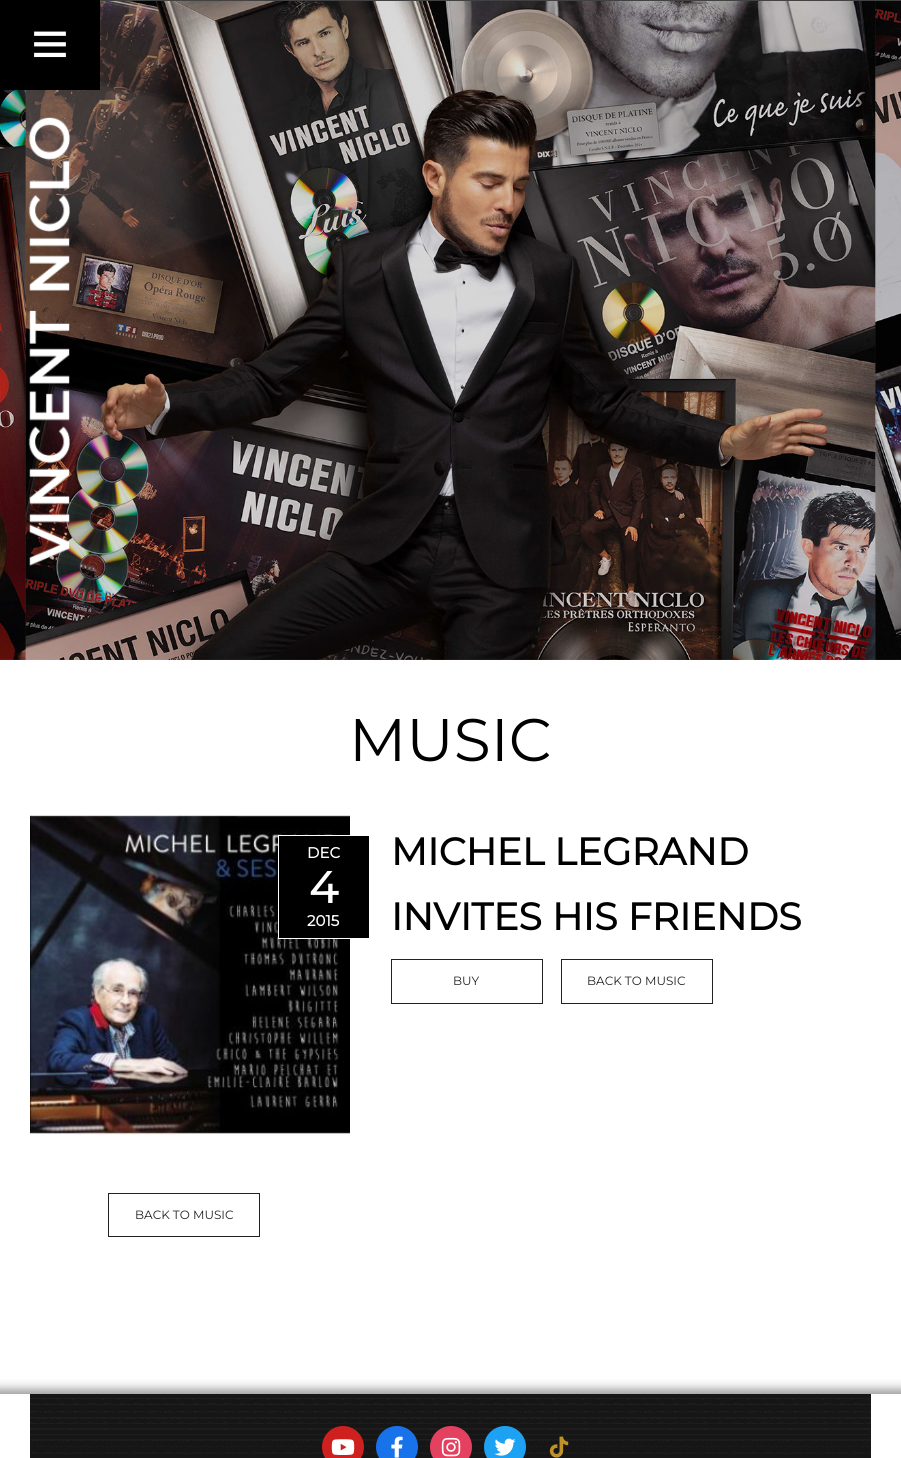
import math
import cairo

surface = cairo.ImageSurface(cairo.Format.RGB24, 901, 1458)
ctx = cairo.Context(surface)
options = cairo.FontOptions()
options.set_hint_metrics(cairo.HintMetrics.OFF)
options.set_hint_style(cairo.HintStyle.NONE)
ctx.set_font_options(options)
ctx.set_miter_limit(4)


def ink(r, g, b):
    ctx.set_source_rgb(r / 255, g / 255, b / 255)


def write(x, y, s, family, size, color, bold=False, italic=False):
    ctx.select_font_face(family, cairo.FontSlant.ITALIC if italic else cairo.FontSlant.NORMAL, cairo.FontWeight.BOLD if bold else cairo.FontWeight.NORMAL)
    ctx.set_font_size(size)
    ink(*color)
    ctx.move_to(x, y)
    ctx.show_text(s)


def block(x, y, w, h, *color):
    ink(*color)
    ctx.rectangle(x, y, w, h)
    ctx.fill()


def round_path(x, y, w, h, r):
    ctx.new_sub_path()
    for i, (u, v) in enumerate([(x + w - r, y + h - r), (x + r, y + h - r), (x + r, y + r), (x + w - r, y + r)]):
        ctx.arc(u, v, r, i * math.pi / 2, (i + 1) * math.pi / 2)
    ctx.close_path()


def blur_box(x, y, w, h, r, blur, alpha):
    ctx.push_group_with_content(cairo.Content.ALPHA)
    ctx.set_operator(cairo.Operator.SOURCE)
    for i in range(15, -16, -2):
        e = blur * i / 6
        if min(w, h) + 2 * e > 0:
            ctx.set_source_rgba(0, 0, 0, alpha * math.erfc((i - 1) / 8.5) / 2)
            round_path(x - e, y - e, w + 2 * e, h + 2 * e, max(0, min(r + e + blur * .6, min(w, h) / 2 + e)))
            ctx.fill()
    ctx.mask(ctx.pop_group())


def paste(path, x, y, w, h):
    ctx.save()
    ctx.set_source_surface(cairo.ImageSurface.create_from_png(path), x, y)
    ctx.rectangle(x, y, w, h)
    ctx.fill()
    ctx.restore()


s1 = dict(family="Montserrat Thin", size=60, color=(0, 0, 0))
s2 = dict(family="Montserrat", size=15, color=(255, 255, 255), bold=True)
s3 = dict(family="Montserrat", size=44, color=(255, 255, 255), bold=True)
s4 = dict(family="Montserrat Thin", size=12, color=(34, 34, 34))
s5 = dict(family="Montserrat", size=38, color=(0, 0, 0), bold=True)

ink(255, 255, 255)
ctx.paint()
block(100, 0, 801, 1, 66, 66, 66)
paste("pic3.png", 0, 1, 901, 659)
block(0, 0, 100, 90, 0, 0, 0)
paste("pic1.png", 34, 31, 32, 27)
paste("pic2.png", 28, 117, 42, 449)
write(349, 761, "MUSIC", **s1)
paste("pic4.png", 30, 815, 320, 320)
ctx.rectangle(278.5, 835.5, 91, 103)
ctx.fill_preserve()
ink(255, 255, 255)
ctx.set_line_width(1)
ctx.stroke()
write(307, 858, "DEC", **s2)
write(309, 903, "4", **s3)
write(307, 926, "2015", **s2)
ctx.rectangle(108.5, 1193.5, 151, 43)
ink(34, 34, 34)
ctx.stroke()
write(135, 1219, "BACK TO MUSIC", **s4)
write(391, 865, "MICHEL LEGRAND", **s5)
write(391, 930, "INVITES HIS FRIENDS", **s5)
ctx.rectangle(391.5, 959.5, 151, 44)
ink(34, 34, 34)
ctx.stroke()
write(453, 985, "BUY", **s4)
ctx.rectangle(561.5, 959.5, 151, 44)
ctx.stroke()
write(587, 985, "BACK TO MUSIC", **s4)
ctx.save()
ctx.rectangle(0, 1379, 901, 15)
ctx.clip()
ink(156, 156, 156)
blur_box(-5, 1389, 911, 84, 0, 5, 1)
ctx.restore()
paste("pic5.png", 30, 1394, 841, 64)
ink(205, 32, 31)
ctx.arc(343, 1447, 21, 0, 2 * math.pi)
ctx.fill()
paste("pic6.png", 331, 1439, 24, 16)
ink(24, 115, 235)
ctx.arc(397, 1447, 21, 0, 2 * math.pi)
ctx.fill()
paste("pic7.png", 391, 1436, 12, 22)
ink(228, 64, 95)
ctx.arc(451, 1447, 21, 0, 2 * math.pi)
ctx.fill()
paste("pic8.png", 441, 1437, 20, 20)
ink(29, 161, 242)
ctx.arc(505, 1447, 21, 0, 2 * math.pi)
ctx.fill()
paste("pic9.png", 494, 1438, 22, 18)
paste("pic10.png", 549, 1436, 20, 22)
surface.write_to_png("screenshot.png")
